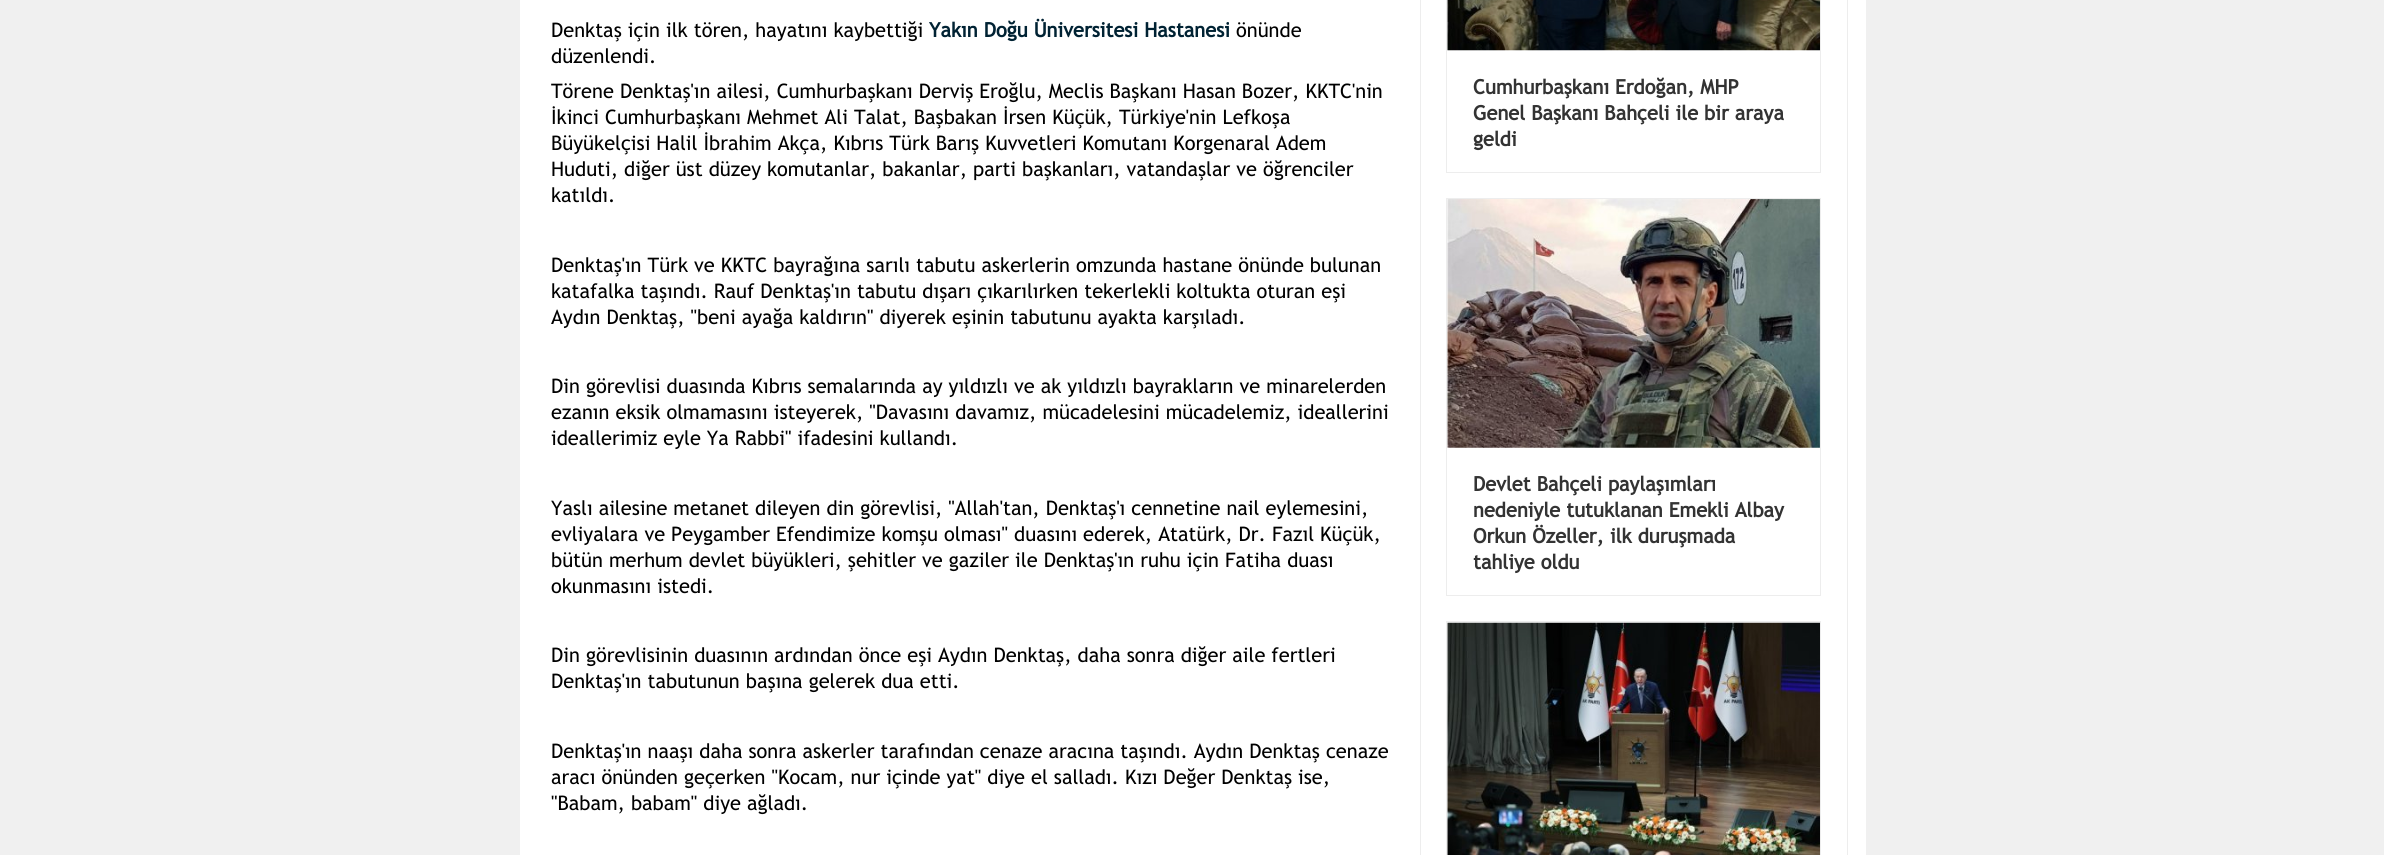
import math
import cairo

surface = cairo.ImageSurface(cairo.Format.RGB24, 2384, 855)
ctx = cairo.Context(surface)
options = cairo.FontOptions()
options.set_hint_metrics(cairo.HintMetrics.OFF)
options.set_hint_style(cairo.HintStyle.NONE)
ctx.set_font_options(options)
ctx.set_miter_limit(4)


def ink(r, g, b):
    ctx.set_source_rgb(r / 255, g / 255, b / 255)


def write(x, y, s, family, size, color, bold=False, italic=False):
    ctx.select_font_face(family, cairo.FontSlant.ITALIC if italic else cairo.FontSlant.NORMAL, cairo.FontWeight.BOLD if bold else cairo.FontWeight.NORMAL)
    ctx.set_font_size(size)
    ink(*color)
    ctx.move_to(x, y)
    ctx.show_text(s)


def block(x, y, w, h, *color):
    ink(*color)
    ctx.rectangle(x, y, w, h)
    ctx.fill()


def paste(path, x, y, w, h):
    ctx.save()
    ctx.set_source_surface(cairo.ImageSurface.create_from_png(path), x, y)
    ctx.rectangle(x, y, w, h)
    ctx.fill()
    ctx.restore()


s1 = dict(family="Trebuchet MS", size=20, color=(0, 0, 0))
s2 = dict(family="Trebuchet MS", size=20, color=(0, 34, 51), bold=True)
s3 = dict(family="Trebuchet MS", size=20, color=(51, 51, 51), bold=True)

ink(240, 240, 240)
ctx.paint()
block(520, 0, 1346, 855, 255, 255, 255)
write(551, 37, "Denktaş için ilk tören, hayatını kaybettiği", **s1)
write(929, 37, "Yakın Doğu Üniversitesi Hastanesi", **s2)
write(1236, 37, "önünde", **s1)
write(551, 63, "düzenlendi.", **s1)
write(551, 98, "Törene Denktaş'ın ailesi, Cumhurbaşkanı Derviş Eroğlu, Meclis Başkanı Hasan Bozer, KKTC'nin", **s1)
write(551, 124, "İkinci Cumhurbaşkanı Mehmet Ali Talat, Başbakan İrsen Küçük, Türkiye'nin Lefkoşa", **s1)
write(551, 150, "Büyükelçisi Halil İbrahim Akça, Kıbrıs Türk Barış Kuvvetleri Komutanı Korgenaral Adem", **s1)
write(551, 176, "Huduti, diğer üst düzey komutanlar, bakanlar, parti başkanları, vatandaşlar ve öğrenciler", **s1)
write(551, 202, "katıldı.", **s1)
write(551, 272, "Denktaş'ın Türk ve KKTC bayrağına sarılı tabutu askerlerin omzunda hastane önünde bulunan", **s1)
write(551, 298, "katafalka taşındı. Rauf Denktaş'ın tabutu dışarı çıkarılırken tekerlekli koltukta oturan eşi", **s1)
write(551, 324, "Aydın Denktaş, \"beni ayağa kaldırın\" diyerek eşinin tabutunu ayakta karşıladı.", **s1)
write(551, 393, "Din görevlisi duasında Kıbrıs semalarında ay yıldızlı ve ak yıldızlı bayrakların ve minarelerden", **s1)
write(551, 419, "ezanın eksik olmamasını isteyerek, \"Davasını davamız, mücadelesini mücadelemiz, ideallerini", **s1)
write(551, 445, "ideallerimiz eyle Ya Rabbi\" ifadesini kullandı.", **s1)
write(551, 515, "Yaslı ailesine metanet dileyen din görevlisi, \"Allah'tan, Denktaş'ı cennetine nail eylemesini,", **s1)
write(551, 541, "evliyalara ve Peygamber Efendimize komşu olması\" duasını ederek, Atatürk, Dr. Fazıl Küçük,", **s1)
write(551, 567, "bütün merhum devlet büyükleri, şehitler ve gaziler ile Denktaş'ın ruhu için Fatiha duası", **s1)
write(551, 593, "okunmasını istedi.", **s1)
write(551, 662, "Din görevlisinin duasının ardından önce eşi Aydın Denktaş, daha sonra diğer aile fertleri", **s1)
write(551, 688, "Denktaş'ın tabutunun başına gelerek dua etti.", **s1)
write(551, 758, "Denktaş'ın naaşı daha sonra askerler tarafından cenaze aracına taşındı. Aydın Denktaş cenaze", **s1)
write(551, 784, "aracı önünden geçerken \"Kocam, nur içinde yat\" diye el salladı. Kızı Değer Denktaş ise,", **s1)
write(551, 810, "\"Babam, babam\" diye ağladı.", **s1)
ctx.rectangle(1420.5, -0.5, 427, 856)
ink(237, 237, 237)
ctx.set_line_width(1)
ctx.stroke()
ctx.rectangle(1446.5, -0.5, 374, 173)
ctx.stroke()
paste("pic1.png", 1447, 0, 373, 51)
write(1473, 94, "Cumhurbaşkanı Erdoğan, MHP", **s3)
write(1473, 120, "Genel Başkanı Bahçeli ile bir araya", **s3)
write(1473, 146, "geldi", **s3)
ctx.rectangle(1446.5, 198.5, 374, 397)
ink(237, 237, 237)
ctx.stroke()
paste("pic2.png", 1447, 199, 373, 249)
write(1473, 491, "Devlet Bahçeli paylaşımları", **s3)
write(1473, 517, "nedeniyle tutuklanan Emekli Albay", **s3)
write(1473, 543, "Orkun Özeller, ilk duruşmada", **s3)
write(1473, 569, "tahliye oldu", **s3)
ctx.rectangle(1446.5, 621.5, 374, 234)
ink(237, 237, 237)
ctx.stroke()
paste("pic3.png", 1447, 622, 373, 233)
surface.write_to_png("screenshot.png")
